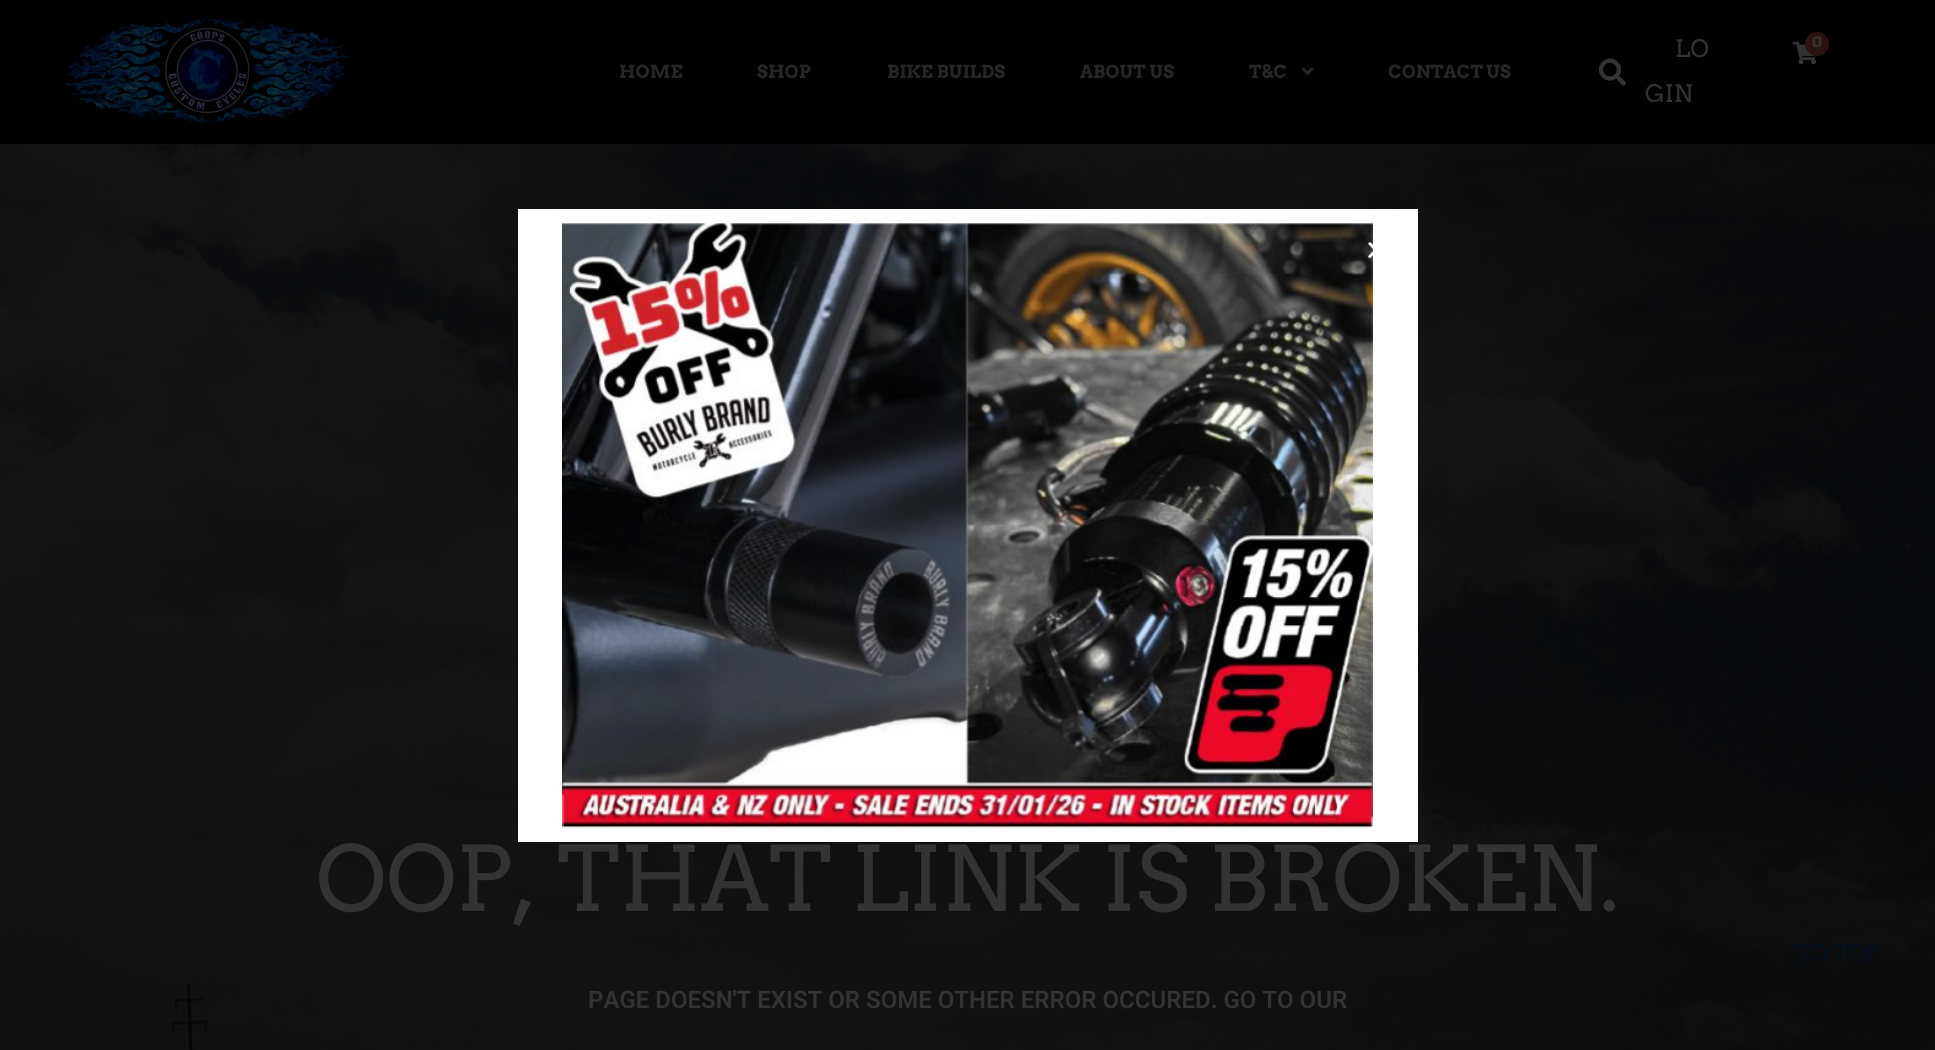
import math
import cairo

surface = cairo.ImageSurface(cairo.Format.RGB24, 1935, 1050)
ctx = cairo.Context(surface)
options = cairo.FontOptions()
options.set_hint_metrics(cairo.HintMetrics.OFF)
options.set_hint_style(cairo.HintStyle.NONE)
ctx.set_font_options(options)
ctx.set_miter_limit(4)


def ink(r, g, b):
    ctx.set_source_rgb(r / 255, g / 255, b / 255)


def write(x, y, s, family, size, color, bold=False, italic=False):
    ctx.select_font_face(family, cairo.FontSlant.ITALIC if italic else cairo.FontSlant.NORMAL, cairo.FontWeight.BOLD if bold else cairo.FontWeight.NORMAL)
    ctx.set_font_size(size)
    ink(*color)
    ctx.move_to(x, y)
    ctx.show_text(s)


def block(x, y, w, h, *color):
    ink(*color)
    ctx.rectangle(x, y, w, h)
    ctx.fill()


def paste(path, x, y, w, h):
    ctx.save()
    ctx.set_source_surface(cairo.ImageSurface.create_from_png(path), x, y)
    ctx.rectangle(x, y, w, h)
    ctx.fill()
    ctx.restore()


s1 = dict(family="Arvo", size=18, color=(38, 38, 38), bold=True)
s2 = dict(family="Arvo", size=24, color=(51, 51, 51))
s3 = dict(family="Russo One", size=15, color=(51, 51, 51))
s4 = dict(family="Arvo", size=90, color=(51, 51, 51))
s5 = dict(family="Roboto SemiBold", size=24, color=(51, 51, 51))
s6 = dict(family="Arvo", size=22.5, color=(0, 15, 31))

ink(255, 255, 255)
ctx.paint()
paste("pic1.png", 0, 144, 1935, 906)
block(0, 0, 1935, 144, 0, 0, 0)
paste("pic2.png", 63, 17, 288, 107)
write(619, 78, "HOME", **s1)
write(757, 78, "SHOP", **s1)
write(887, 78, "BIKE BUILDS", **s1)
write(1080, 78, "ABOUT US", **s1)
write(1249, 78, "T&C", **s1)
paste("pic3.png", 1302, 67, 12, 8)
write(1388, 78, "CONTACT US", **s1)
paste("pic4.png", 1598, 58, 29, 28)
write(1675, 57, "LO", **s2)
write(1645, 102, "GIN", **s2)
paste("pic5.png", 1792, 41, 24, 24)
ink(43, 17, 16)
ctx.arc(1817, 44, 12, 0, 2 * math.pi)
ctx.fill()
write(1812, 47, "0", **s3)
write(316, 911, "OOP, THAT LINK IS BROKEN.", **s4)
write(588, 1008, "PAGE DOESN'T EXIST OR SOME OTHER ERROR OCCURED. GO TO OUR", **s5)
write(1795, 961, "TO TOP", **s6)
block(518, 209, 900, 633, 255, 255, 255)
paste("pic6.png", 562, 223, 811, 605)
paste("pic7.png", 1368, 242, 5, 16)
surface.write_to_png("screenshot.png")
